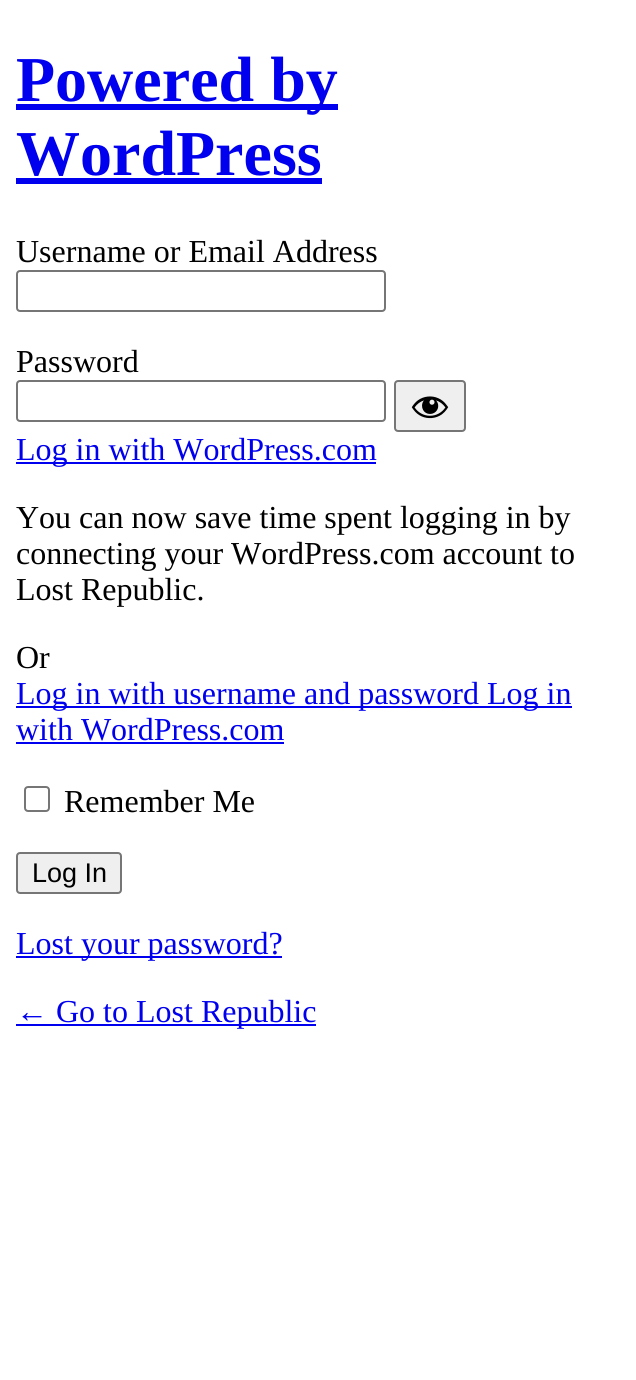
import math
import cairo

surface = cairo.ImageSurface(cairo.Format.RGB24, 636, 1380)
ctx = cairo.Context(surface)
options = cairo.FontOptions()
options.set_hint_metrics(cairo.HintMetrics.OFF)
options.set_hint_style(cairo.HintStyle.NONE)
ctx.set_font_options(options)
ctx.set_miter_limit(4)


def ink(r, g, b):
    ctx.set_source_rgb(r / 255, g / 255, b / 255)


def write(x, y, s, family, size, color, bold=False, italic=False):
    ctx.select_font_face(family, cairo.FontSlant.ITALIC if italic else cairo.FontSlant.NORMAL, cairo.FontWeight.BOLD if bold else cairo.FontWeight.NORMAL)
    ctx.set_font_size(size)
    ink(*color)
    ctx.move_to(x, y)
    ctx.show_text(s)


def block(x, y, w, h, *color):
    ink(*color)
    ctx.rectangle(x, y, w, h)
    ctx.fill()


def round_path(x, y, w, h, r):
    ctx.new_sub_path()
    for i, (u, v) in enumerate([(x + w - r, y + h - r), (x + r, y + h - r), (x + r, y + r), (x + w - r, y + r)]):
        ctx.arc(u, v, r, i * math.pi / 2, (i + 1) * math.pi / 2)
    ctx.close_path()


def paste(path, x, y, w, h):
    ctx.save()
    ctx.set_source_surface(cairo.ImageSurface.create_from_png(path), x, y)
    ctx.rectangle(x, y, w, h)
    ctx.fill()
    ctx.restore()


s1 = dict(family="Liberation Serif", size=64, color=(0, 0, 238), bold=True)
s2 = dict(family="Liberation Serif", size=32, color=(0, 0, 0))
s3 = dict(family="Liberation Serif", size=32, color=(0, 0, 238))
s4 = dict(family="Liberation Sans", size=27, color=(0, 0, 0))

ink(255, 255, 255)
ctx.paint()
block(16, 104, 322, 6, 0, 0, 238)
write(16, 101, "Powered by", **s1)
write(16, 175, "WordPress", **s1)
block(16, 178, 306, 6, 0, 0, 238)
write(16, 262, "Username or Email Address", **s2)
round_path(17, 271, 368, 40, 3)
ink(118, 118, 118)
ctx.stroke()
write(16, 372, "Password", **s2)
round_path(17, 381, 368, 40, 3)
ink(118, 118, 118)
ctx.stroke()
ink(239, 239, 239)
round_path(395, 381, 70, 50, 3)
ctx.fill_preserve()
ink(118, 118, 118)
ctx.stroke()
paste("pic1.png", 411, 396, 38, 23)
block(16, 462, 360, 2, 0, 0, 238)
write(16, 460, "Log in with WordPress.com", **s3)
write(16, 528, "You can now save time spent logging in by", **s2)
write(16, 564, "connecting your WordPress.com account to", **s2)
write(16, 600, "Lost Republic.", **s2)
write(16, 668, "Or", **s2)
block(16, 706, 556, 2, 0, 0, 238)
write(16, 704, "Log in with username and password Log in", **s3)
write(16, 740, "with WordPress.com", **s3)
block(16, 742, 268, 2, 0, 0, 238)
round_path(25, 787, 24, 24, 3)
ink(118, 118, 118)
ctx.stroke()
write(64, 812, "Remember Me", **s2)
ink(239, 239, 239)
round_path(17, 853, 104, 40, 3)
ctx.fill_preserve()
ink(118, 118, 118)
ctx.stroke()
write(32, 882, "Log In", **s4)
block(16, 956, 266, 2, 0, 0, 238)
write(16, 954, "Lost your password?", **s3)
block(16, 1024, 300, 2, 0, 0, 238)
write(16, 1022, "← Go to Lost Republic", **s3)
surface.write_to_png("screenshot.png")
